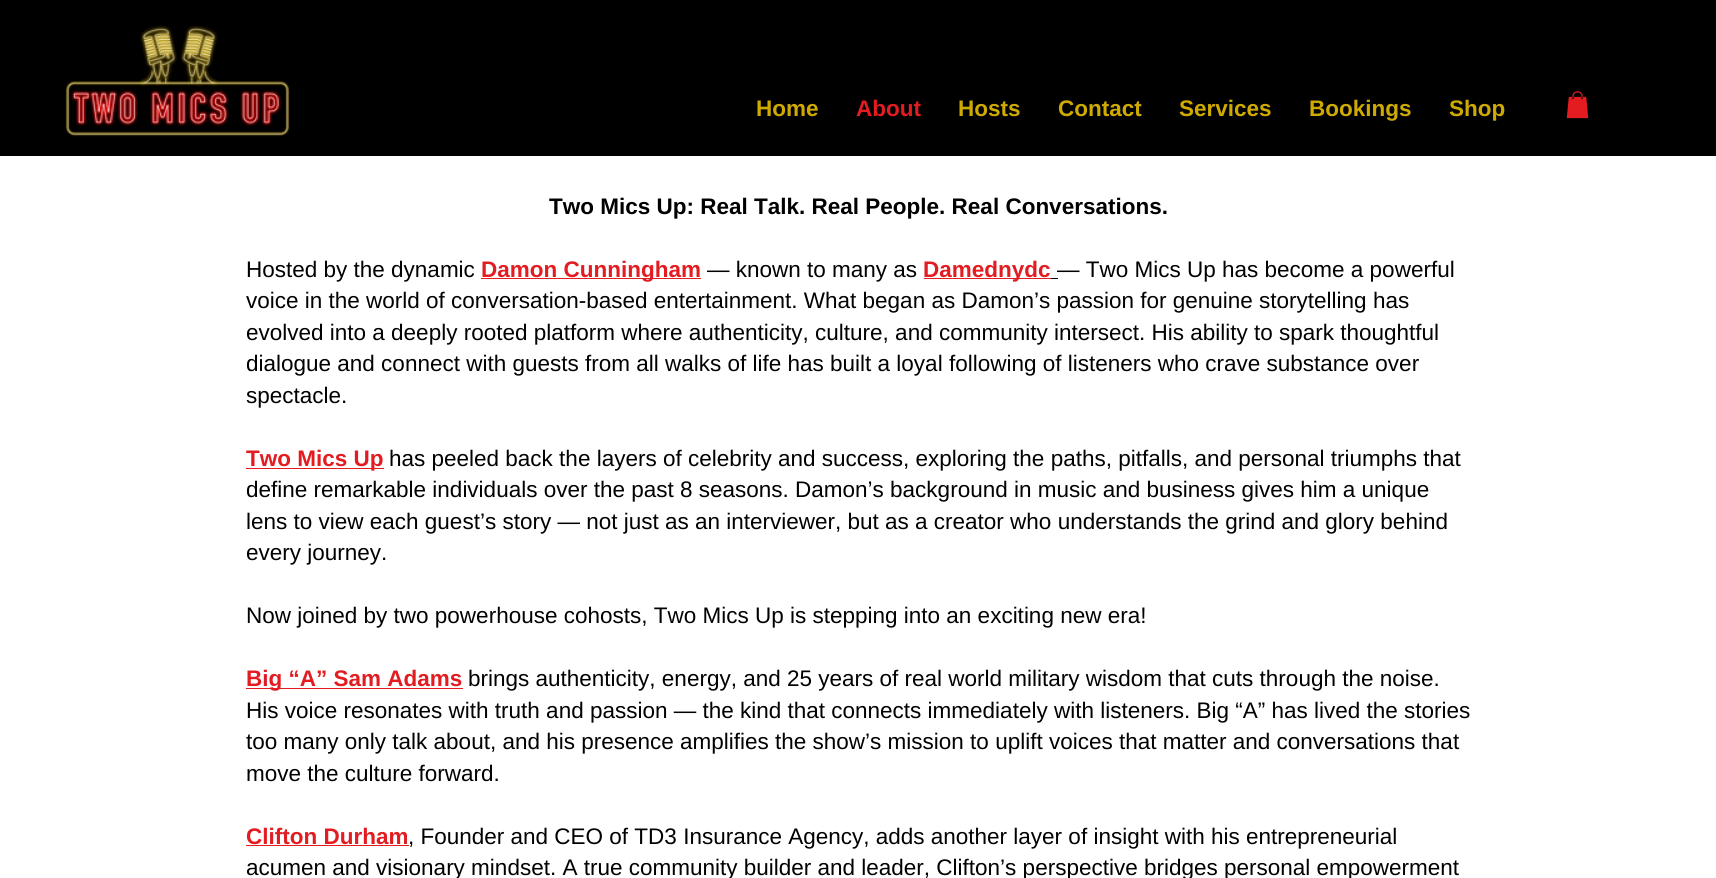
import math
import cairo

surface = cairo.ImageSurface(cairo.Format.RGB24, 1716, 878)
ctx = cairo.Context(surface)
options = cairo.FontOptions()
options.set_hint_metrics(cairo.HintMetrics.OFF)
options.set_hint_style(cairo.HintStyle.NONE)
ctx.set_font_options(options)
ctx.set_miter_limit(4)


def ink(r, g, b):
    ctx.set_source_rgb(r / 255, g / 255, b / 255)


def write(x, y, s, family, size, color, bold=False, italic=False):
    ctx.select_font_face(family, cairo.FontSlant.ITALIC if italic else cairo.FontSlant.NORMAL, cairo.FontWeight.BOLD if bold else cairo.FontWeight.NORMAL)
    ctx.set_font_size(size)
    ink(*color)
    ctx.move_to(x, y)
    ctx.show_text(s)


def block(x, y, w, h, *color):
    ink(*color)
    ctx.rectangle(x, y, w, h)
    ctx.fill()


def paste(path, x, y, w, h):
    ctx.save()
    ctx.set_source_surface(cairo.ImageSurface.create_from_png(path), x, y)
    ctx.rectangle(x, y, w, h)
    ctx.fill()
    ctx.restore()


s1 = dict(family="Liberation Sans", size=22.5, color=(207, 170, 1), bold=True)
s2 = dict(family="Liberation Sans", size=22.5, color=(226, 28, 33), bold=True)
s3 = dict(family="Liberation Sans", size=22.5, color=(0, 0, 0), bold=True)
s4 = dict(family="Liberation Sans", size=22.5, color=(0, 0, 0))

ink(255, 255, 255)
ctx.paint()
block(0, 0, 1716, 156, 0, 0, 0)
paste("pic1.png", 65, 25, 225, 112)
write(756, 116, "Home", **s1)
write(856, 116, "About", **s2)
write(958, 116, "Hosts", **s1)
write(1058, 116, "Contact", **s1)
write(1179, 116, "Services", **s1)
write(1309, 116, "Bookings", **s1)
write(1449, 116, "Shop", **s1)
paste("pic2.png", 1566, 91, 23, 28)
write(549, 214, "Two Mics Up: Real Talk. Real People. Real Conversations.", **s3)
write(246, 277, "Hosted by the dynamic", **s4)
block(481, 278, 220, 1, 226, 28, 33)
write(481, 277, "Damon Cunningham", **s2)
write(707, 277, "— known to many as", **s4)
block(924, 278, 127, 1, 226, 28, 33)
write(923, 277, "Damednydc", **s2)
block(1051, 278, 7, 1, 0, 0, 0)
write(1057, 277, "— Two Mics Up has become a powerful", **s4)
write(246, 308, "voice in the world of conversation-based entertainment. What began as Damon’s passion for genuine storytelling has", **s4)
write(246, 340, "evolved into a deeply rooted platform where authenticity, culture, and community intersect. His ability to spark thoughtful", **s4)
write(246, 371, "dialogue and connect with guests from all walks of life has built a loyal following of listeners who crave substance over", **s4)
write(246, 403, "spectacle.", **s4)
block(246, 468, 138, 1, 226, 28, 33)
write(246, 466, "Two Mics Up", **s2)
write(389, 466, "has peeled back the layers of celebrity and success, exploring the paths, pitfalls, and personal triumphs that", **s4)
write(246, 497, "define remarkable individuals over the past 8 seasons. Damon’s background in music and business gives him a unique", **s4)
write(246, 529, "lens to view each guest’s story — not just as an interviewer, but as a creator who understands the grind and glory behind", **s4)
write(246, 560, "every journey.", **s4)
write(246, 623, "Now joined by two powerhouse cohosts, Two Mics Up is stepping into an exciting new era!", **s4)
block(246, 688, 217, 1, 226, 28, 33)
write(246, 686, "Big “A” Sam Adams", **s2)
write(468, 686, "brings authenticity, energy, and 25 years of real world military wisdom that cuts through the noise.", **s4)
write(246, 718, "His voice resonates with truth and passion — the kind that connects immediately with listeners. Big “A” has lived the stories", **s4)
write(246, 749, "too many only talk about, and his presence amplifies the show’s mission to uplift voices that matter and conversations that", **s4)
write(246, 781, "move the culture forward.", **s4)
write(246, 844, "Clifton Durham", **s2)
block(246, 845, 163, 1, 226, 28, 33)
write(408, 844, ", Founder and CEO of TD3 Insurance Agency, adds another layer of insight with his entrepreneurial", **s4)
write(246, 875, "acumen and visionary mindset. A true community builder and leader, Clifton’s perspective bridges personal empowerment", **s4)
surface.write_to_png("screenshot.png")
